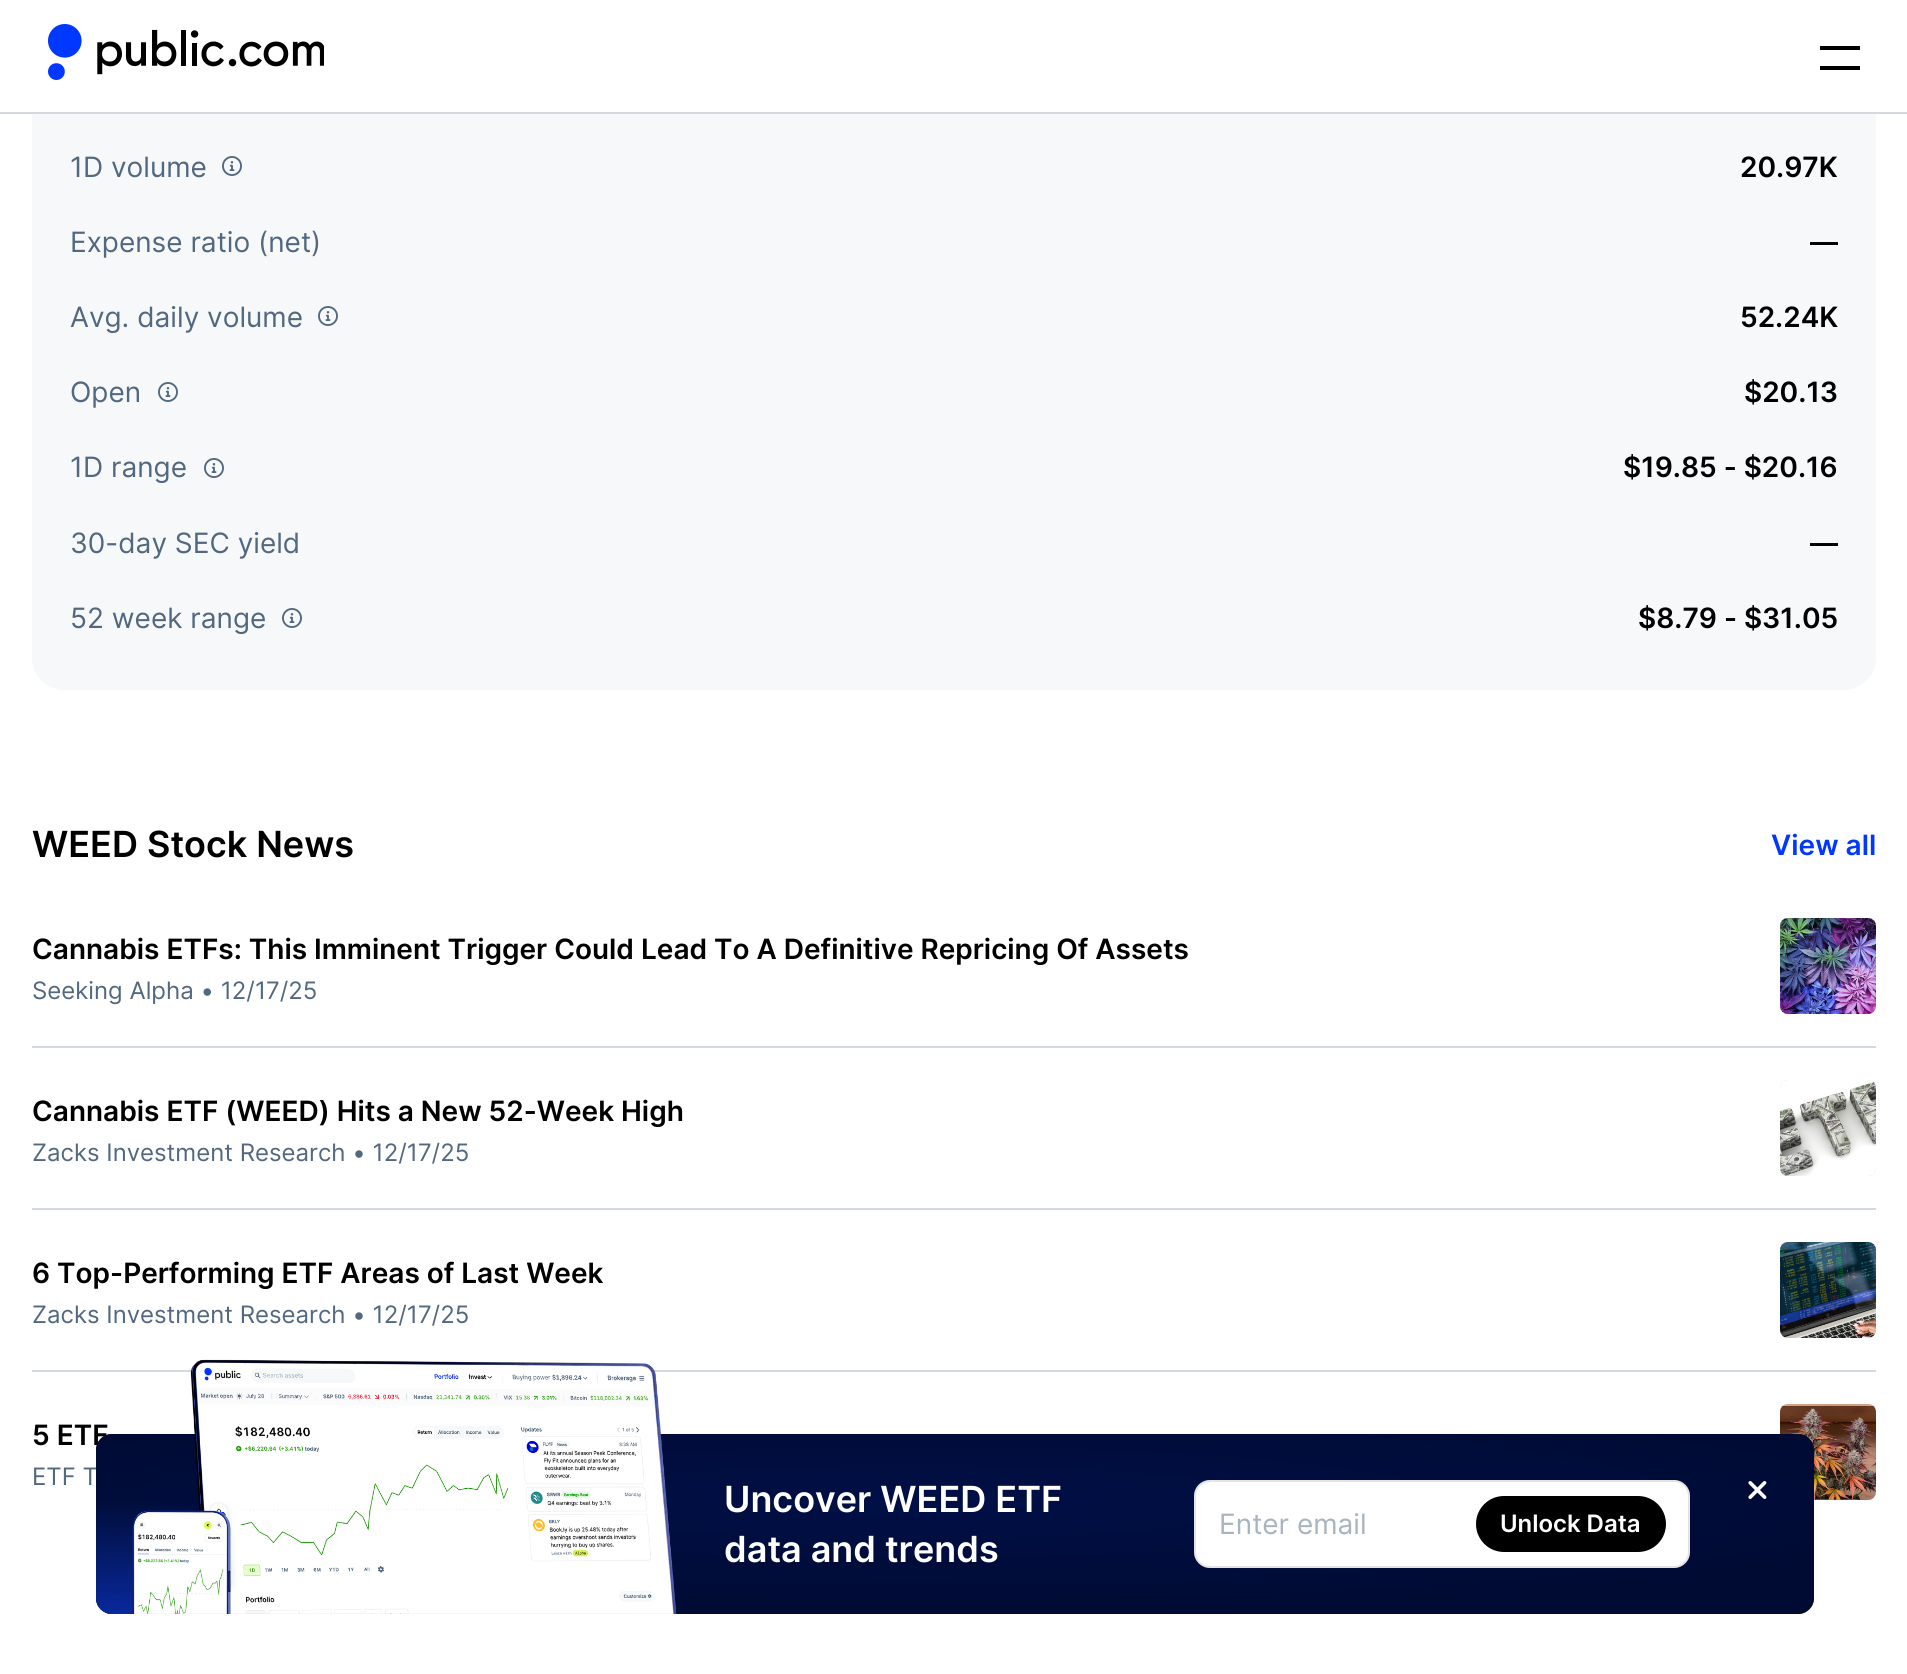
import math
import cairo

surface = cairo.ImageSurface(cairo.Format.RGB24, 1907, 1674)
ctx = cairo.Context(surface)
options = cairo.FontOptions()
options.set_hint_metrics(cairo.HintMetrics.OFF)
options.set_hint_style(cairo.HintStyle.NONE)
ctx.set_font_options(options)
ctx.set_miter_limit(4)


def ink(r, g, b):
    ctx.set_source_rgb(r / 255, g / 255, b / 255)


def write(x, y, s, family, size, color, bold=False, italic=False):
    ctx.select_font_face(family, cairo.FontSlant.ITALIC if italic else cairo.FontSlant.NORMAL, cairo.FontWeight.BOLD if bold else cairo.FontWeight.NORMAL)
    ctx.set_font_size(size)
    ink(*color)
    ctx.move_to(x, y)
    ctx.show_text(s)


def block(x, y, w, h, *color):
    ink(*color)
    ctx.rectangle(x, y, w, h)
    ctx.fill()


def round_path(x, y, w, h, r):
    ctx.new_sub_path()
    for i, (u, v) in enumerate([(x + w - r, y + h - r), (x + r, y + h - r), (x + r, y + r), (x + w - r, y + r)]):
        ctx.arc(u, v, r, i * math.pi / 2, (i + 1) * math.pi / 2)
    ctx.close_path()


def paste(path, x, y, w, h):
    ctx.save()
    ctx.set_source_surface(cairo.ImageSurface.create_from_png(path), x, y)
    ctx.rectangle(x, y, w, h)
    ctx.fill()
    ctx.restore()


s1 = dict(family="Inter", size=28, color=(81, 104, 128))
s2 = dict(family="Inter SemiBold", size=28, color=(0, 0, 0))
s3 = dict(family="Inter SemiBold", size=36, color=(0, 0, 0))
s4 = dict(family="Inter SemiBold", size=28, color=(0, 56, 255))
s5 = dict(family="Inter", size=24, color=(81, 104, 128))
s6 = dict(family="Inter SemiBold", size=36, color=(255, 255, 255))
s7 = dict(family="Inter", size=28, color=(168, 180, 191))
s8 = dict(family="Inter SemiBold", size=24, color=(255, 255, 255))

ink(255, 255, 255)
ctx.paint()
ink(246, 248, 249)
round_path(32, -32, 1844, 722, 32)
ctx.fill()
block(32, 0, 1844, 112, 255, 255, 255)
block(0, 112, 1907, 2, 212, 217, 223)
paste("pic1.png", 48, 24, 34, 56)
paste("pic2.png", 97, 29, 227, 46)
block(1820, 46, 40, 4, 0, 0, 0)
block(1820, 66, 40, 4, 0, 0, 0)
write(70, 177, "1D volume", **s1)
paste("pic3.png", 222, 156, 20, 20)
write(1740, 177, "20.97K", **s2)
write(70, 252, "Expense ratio (net)", **s1)
write(1810, 252, "—", **s2)
write(70, 327, "Avg. daily volume", **s1)
paste("pic3.png", 318, 306, 20, 20)
write(1740, 327, "52.24K", **s2)
write(70, 402, "Open", **s1)
paste("pic3.png", 158, 382, 20, 20)
write(1744, 402, "$20.13", **s2)
write(70, 477, "1D range", **s1)
paste("pic3.png", 204, 458, 20, 20)
write(1623, 477, "$19.85 - $20.16", **s2)
write(70, 553, "30-day SEC yield", **s1)
write(1810, 553, "—", **s2)
write(70, 628, "52 week range", **s1)
paste("pic3.png", 282, 608, 20, 20)
write(1638, 628, "$8.79 - $31.05", **s2)
write(32, 857, "WEED Stock News", **s3)
write(1771, 855, "View all", **s4)
write(32, 959, "Cannabis ETFs: This Imminent Trigger Could Lead To A Definitive Repricing Of Assets", **s2)
write(32, 999, "Seeking Alpha • 12/17/25", **s5)
ink(212, 217, 223)
round_path(1780, 918, 96, 96, 8)
ctx.fill()
paste("pic4.png", 1780, 918, 96, 96)
block(32, 1046, 1844, 2, 212, 217, 223)
write(32, 1121, "Cannabis ETF (WEED) Hits a New 52-Week High", **s2)
write(32, 1161, "Zacks Investment Research • 12/17/25", **s5)
ink(212, 217, 223)
round_path(1780, 1080, 96, 96, 8)
ctx.fill()
paste("pic5.png", 1780, 1080, 96, 96)
block(32, 1208, 1844, 2, 212, 217, 223)
write(32, 1283, "6 Top-Performing ETF Areas of Last Week", **s2)
write(32, 1323, "Zacks Investment Research • 12/17/25", **s5)
ink(212, 217, 223)
round_path(1780, 1242, 96, 96, 8)
ctx.fill()
paste("pic6.png", 1780, 1242, 96, 96)
block(32, 1370, 1844, 2, 212, 217, 223)
write(32, 1445, "5 ETF", **s2)
write(32, 1485, "ETF T", **s5)
ink(212, 217, 223)
round_path(1780, 1404, 96, 96, 8)
ctx.fill()
paste("pic7.png", 1780, 1404, 96, 96)
gradient = cairo.RadialGradient(0, 0, 0, 0, 0, 1)
gradient.set_matrix(cairo.Matrix(1 / 1109, 0, 0, 1 / 113, -1 * 910 / 1109, -1 * 1502 / 113))
gradient.add_color_stop_rgba(0, 0, 0.078, 0.365, 1)
gradient.add_color_stop_rgba(1, 0, 0, 0, 1)
ctx.set_source(gradient)
round_path(96, 1434, 1718, 180, 16)
ctx.fill()
ctx.set_source_rgba(0, 0.055, 0.251, 0.8)
round_path(96, 1434, 1718, 180, 16)
ctx.fill()
gradient = cairo.RadialGradient(0, 0, 0, 0, 0, 1)
gradient.set_matrix(cairo.Matrix(1 / 575, 0, 0, 1 / 116, -1 * 115 / 575, -1 * 1614 / 116))
gradient.add_color_stop_rgba(0, 0.035, 0.161, 0.616, 1)
gradient.add_color_stop_rgba(1, 0.035, 0.161, 0.616, 0)
ctx.set_source(gradient)
round_path(96, 1434, 1718, 180, 16)
ctx.fill()
paste("pic8.png", 132, 1359, 545, 255)
write(724, 1512, "Uncover WEED ETF", **s6)
write(724, 1562, "data and trends", **s6)
round_path(1194, 1480, 496, 88, 16)
ctx.fill()
round_path(1195, 1481, 494, 86, 15)
ctx.set_source_rgba(0.471, 0.471, 0.471, 0.2)
ctx.stroke()
write(1219, 1534, "Enter email", **s7)
ink(0, 0, 0)
round_path(1476, 1496, 190, 56, 28)
ctx.fill()
write(1500, 1532, "Unlock Data", **s8)
paste("pic9.png", 1748, 1481, 19, 18)
surface.write_to_png("screenshot.png")
